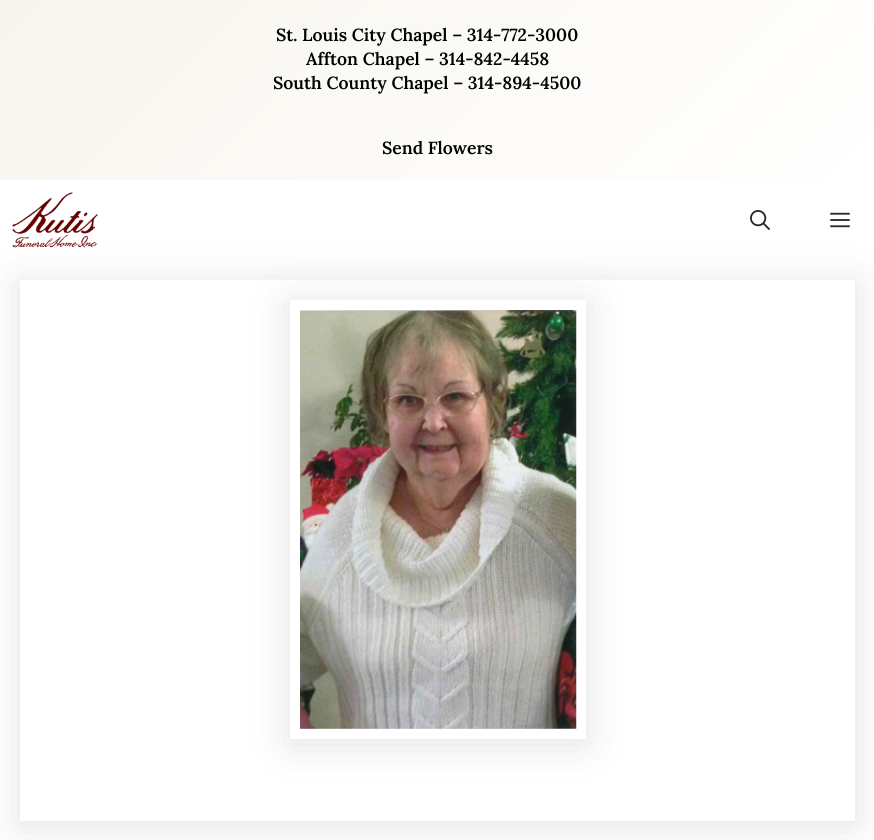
import math
import cairo

surface = cairo.ImageSurface(cairo.Format.RGB24, 874, 840)
ctx = cairo.Context(surface)
options = cairo.FontOptions()
options.set_hint_metrics(cairo.HintMetrics.OFF)
options.set_hint_style(cairo.HintStyle.NONE)
ctx.set_font_options(options)
ctx.set_miter_limit(4)


def ink(r, g, b):
    ctx.set_source_rgb(r / 255, g / 255, b / 255)


def write(x, y, s, family, size, color, bold=False, italic=False):
    ctx.select_font_face(family, cairo.FontSlant.ITALIC if italic else cairo.FontSlant.NORMAL, cairo.FontWeight.BOLD if bold else cairo.FontWeight.NORMAL)
    ctx.set_font_size(size)
    ink(*color)
    ctx.move_to(x, y)
    ctx.show_text(s)


def round_path(x, y, w, h, r):
    ctx.new_sub_path()
    for i, (u, v) in enumerate([(x + w - r, y + h - r), (x + r, y + h - r), (x + r, y + r), (x + w - r, y + r)]):
        ctx.arc(u, v, r, i * math.pi / 2, (i + 1) * math.pi / 2)
    ctx.close_path()


def blur_box(x, y, w, h, r, blur, alpha):
    ctx.push_group_with_content(cairo.Content.ALPHA)
    ctx.set_operator(cairo.Operator.SOURCE)
    for i in range(15, -16, -2):
        e = blur * i / 6
        if min(w, h) + 2 * e > 0:
            ctx.set_source_rgba(0, 0, 0, alpha * math.erfc((i - 1) / 8.5) / 2)
            round_path(x - e, y - e, w + 2 * e, h + 2 * e, max(0, min(r + e + blur * .6, min(w, h) / 2 + e)))
            ctx.fill()
    ctx.mask(ctx.pop_group())


def paste(path, x, y, w, h):
    ctx.save()
    ctx.set_source_surface(cairo.ImageSurface.create_from_png(path), x, y)
    ctx.rectangle(x, y, w, h)
    ctx.fill()
    ctx.restore()


s1 = dict(family="Lora SemiBold", size=17.5, color=(0, 0, 0))

ink(255, 255, 255)
ctx.paint()
gradient = cairo.LinearGradient(174, -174, 701, 354)
gradient.add_color_stop_rgba(0, 0.973, 0.961, 0.933, 1)
gradient.add_color_stop_rgba(1, 1, 1, 1, 1)
ctx.set_source(gradient)
ctx.rectangle(0, 0, 874, 180)
ctx.fill()
write(276, 41, "St. Louis City Chapel – 314-772-3000", **s1)
write(306, 65, "Affton Chapel – 314-842-4458", **s1)
write(273, 89, "South County Chapel – 314-894-4500", **s1)
write(382, 154, "Send Flowers", **s1)
paste("pic1.png", 12, 192, 86, 56)
paste("pic2.png", 750, 210, 20, 20)
paste("pic3.png", 830, 212, 20, 16)
ctx.save()
ctx.set_fill_rule(cairo.FillRule.EVEN_ODD)
ctx.new_path()
ctx.move_to(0, 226)
ctx.line_to(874, 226)
ctx.line_to(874, 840)
ctx.line_to(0, 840)
ctx.close_path()
ctx.move_to(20, 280)
ctx.line_to(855, 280)
ctx.line_to(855, 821)
ctx.line_to(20, 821)
ctx.close_path()
ctx.clip()
ink(226, 226, 226)
blur_box(20, 284, 835, 541, 0, 19, 1)
ctx.restore()
ink(226, 226, 226)
blur_box(290, 304, 296, 439, 0, 19, 1)
ctx.rectangle(295, 305, 286, 429)
ink(255, 255, 255)
ctx.set_line_width(10)
ctx.stroke()
paste("pic4.png", 300, 310, 277, 419)
surface.write_to_png("screenshot.png")
